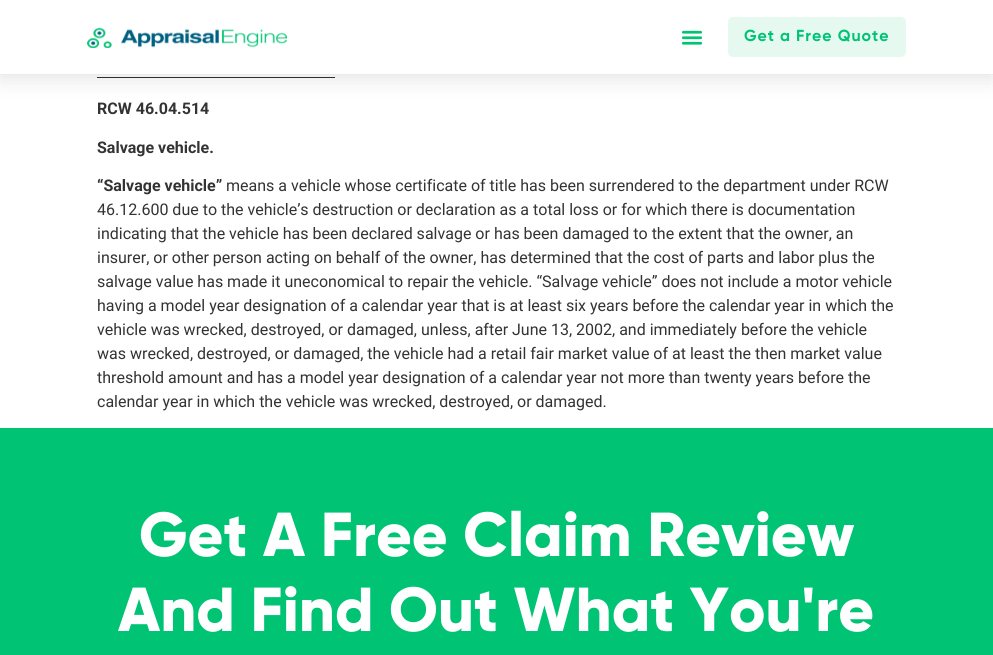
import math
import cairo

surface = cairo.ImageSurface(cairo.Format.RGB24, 993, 655)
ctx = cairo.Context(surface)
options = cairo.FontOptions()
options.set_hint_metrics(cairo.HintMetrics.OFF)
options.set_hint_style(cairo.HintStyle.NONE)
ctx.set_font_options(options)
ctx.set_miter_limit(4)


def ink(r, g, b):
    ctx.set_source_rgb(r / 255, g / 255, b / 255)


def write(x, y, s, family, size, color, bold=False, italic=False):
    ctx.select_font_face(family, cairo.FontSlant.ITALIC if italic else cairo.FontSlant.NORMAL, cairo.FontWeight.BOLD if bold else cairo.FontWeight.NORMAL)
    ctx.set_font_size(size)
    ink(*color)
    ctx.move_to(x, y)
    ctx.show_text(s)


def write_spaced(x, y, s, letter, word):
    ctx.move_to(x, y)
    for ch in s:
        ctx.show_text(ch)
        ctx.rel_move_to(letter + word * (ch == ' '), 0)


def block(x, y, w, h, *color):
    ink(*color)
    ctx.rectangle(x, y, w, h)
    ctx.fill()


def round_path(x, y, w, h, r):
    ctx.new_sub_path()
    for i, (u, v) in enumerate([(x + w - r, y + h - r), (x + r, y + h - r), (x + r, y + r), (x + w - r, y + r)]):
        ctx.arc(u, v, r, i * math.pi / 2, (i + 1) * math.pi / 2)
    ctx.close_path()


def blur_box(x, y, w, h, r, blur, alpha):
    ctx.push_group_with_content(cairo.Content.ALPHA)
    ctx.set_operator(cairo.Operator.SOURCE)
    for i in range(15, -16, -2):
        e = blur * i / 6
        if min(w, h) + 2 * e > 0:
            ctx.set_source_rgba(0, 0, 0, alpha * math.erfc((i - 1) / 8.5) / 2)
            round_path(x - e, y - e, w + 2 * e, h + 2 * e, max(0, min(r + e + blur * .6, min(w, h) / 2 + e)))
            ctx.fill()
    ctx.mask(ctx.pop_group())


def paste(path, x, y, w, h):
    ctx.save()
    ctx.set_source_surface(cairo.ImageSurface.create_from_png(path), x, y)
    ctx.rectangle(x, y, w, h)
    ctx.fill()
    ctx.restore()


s1 = dict(family="Roboto", size=16, color=(51, 51, 51), bold=True)
s2 = dict(family="Roboto", size=16, color=(51, 51, 51))
s3 = dict(family="Gilroy ExtraBold", size=62, color=(255, 255, 255))

ink(255, 255, 255)
ctx.paint()
block(97, 77, 238, 1, 51, 51, 51)
ink(0, 0, 0)
blur_box(0, 5, 993, 75, 0, 10, 0.1)
block(0, 0, 993, 74, 255, 255, 255)
block(0, 74, 993, 1, 236, 236, 236)
paste("pic1.png", 87, 27, 200, 21)
paste("pic2.png", 681, 30, 22, 15)
ink(230, 249, 241)
round_path(728, 17, 178, 40, 5)
ctx.fill()
ctx.select_font_face("Gilroy", cairo.FontSlant.NORMAL, cairo.FontWeight.BOLD)
ctx.set_font_size(16)
ink(0, 195, 116)
write_spaced(744, 41, "Get a Free Quote", 1, 0)
write(97, 114, "RCW 46.04.514", **s1)
write(97, 153, "Salvage vehicle.", **s1)
write(97, 191, "“Salvage vehicle”", **s1)
write(226, 191, "means a vehicle whose certificate of title has been surrendered to the department under RCW", **s2)
write(97, 215, "46.12.600 due to the vehicle’s destruction or declaration as a total loss or for which there is documentation", **s2)
write(97, 239, "indicating that the vehicle has been declared salvage or has been damaged to the extent that the owner, an", **s2)
write(97, 263, "insurer, or other person acting on behalf of the owner, has determined that the cost of parts and labor plus the", **s2)
write(97, 287, "salvage value has made it uneconomical to repair the vehicle. “Salvage vehicle” does not include a motor vehicle", **s2)
write(97, 311, "having a model year designation of a calendar year that is at least six years before the calendar year in which the", **s2)
write(97, 335, "vehicle was wrecked, destroyed, or damaged, unless, after June 13, 2002, and immediately before the vehicle", **s2)
write(97, 359, "was wrecked, destroyed, or damaged, the vehicle had a retail fair market value of at least the then market value", **s2)
write(97, 383, "threshold amount and has a model year designation of a calendar year not more than twenty years before the", **s2)
write(97, 407, "calendar year in which the vehicle was wrecked, destroyed, or damaged.", **s2)
block(0, 428, 993, 227, 0, 195, 116)
write(139, 556, "Get A Free Claim Review", **s3)
write(118, 631, "And Find Out What You're", **s3)
surface.write_to_png("screenshot.png")
